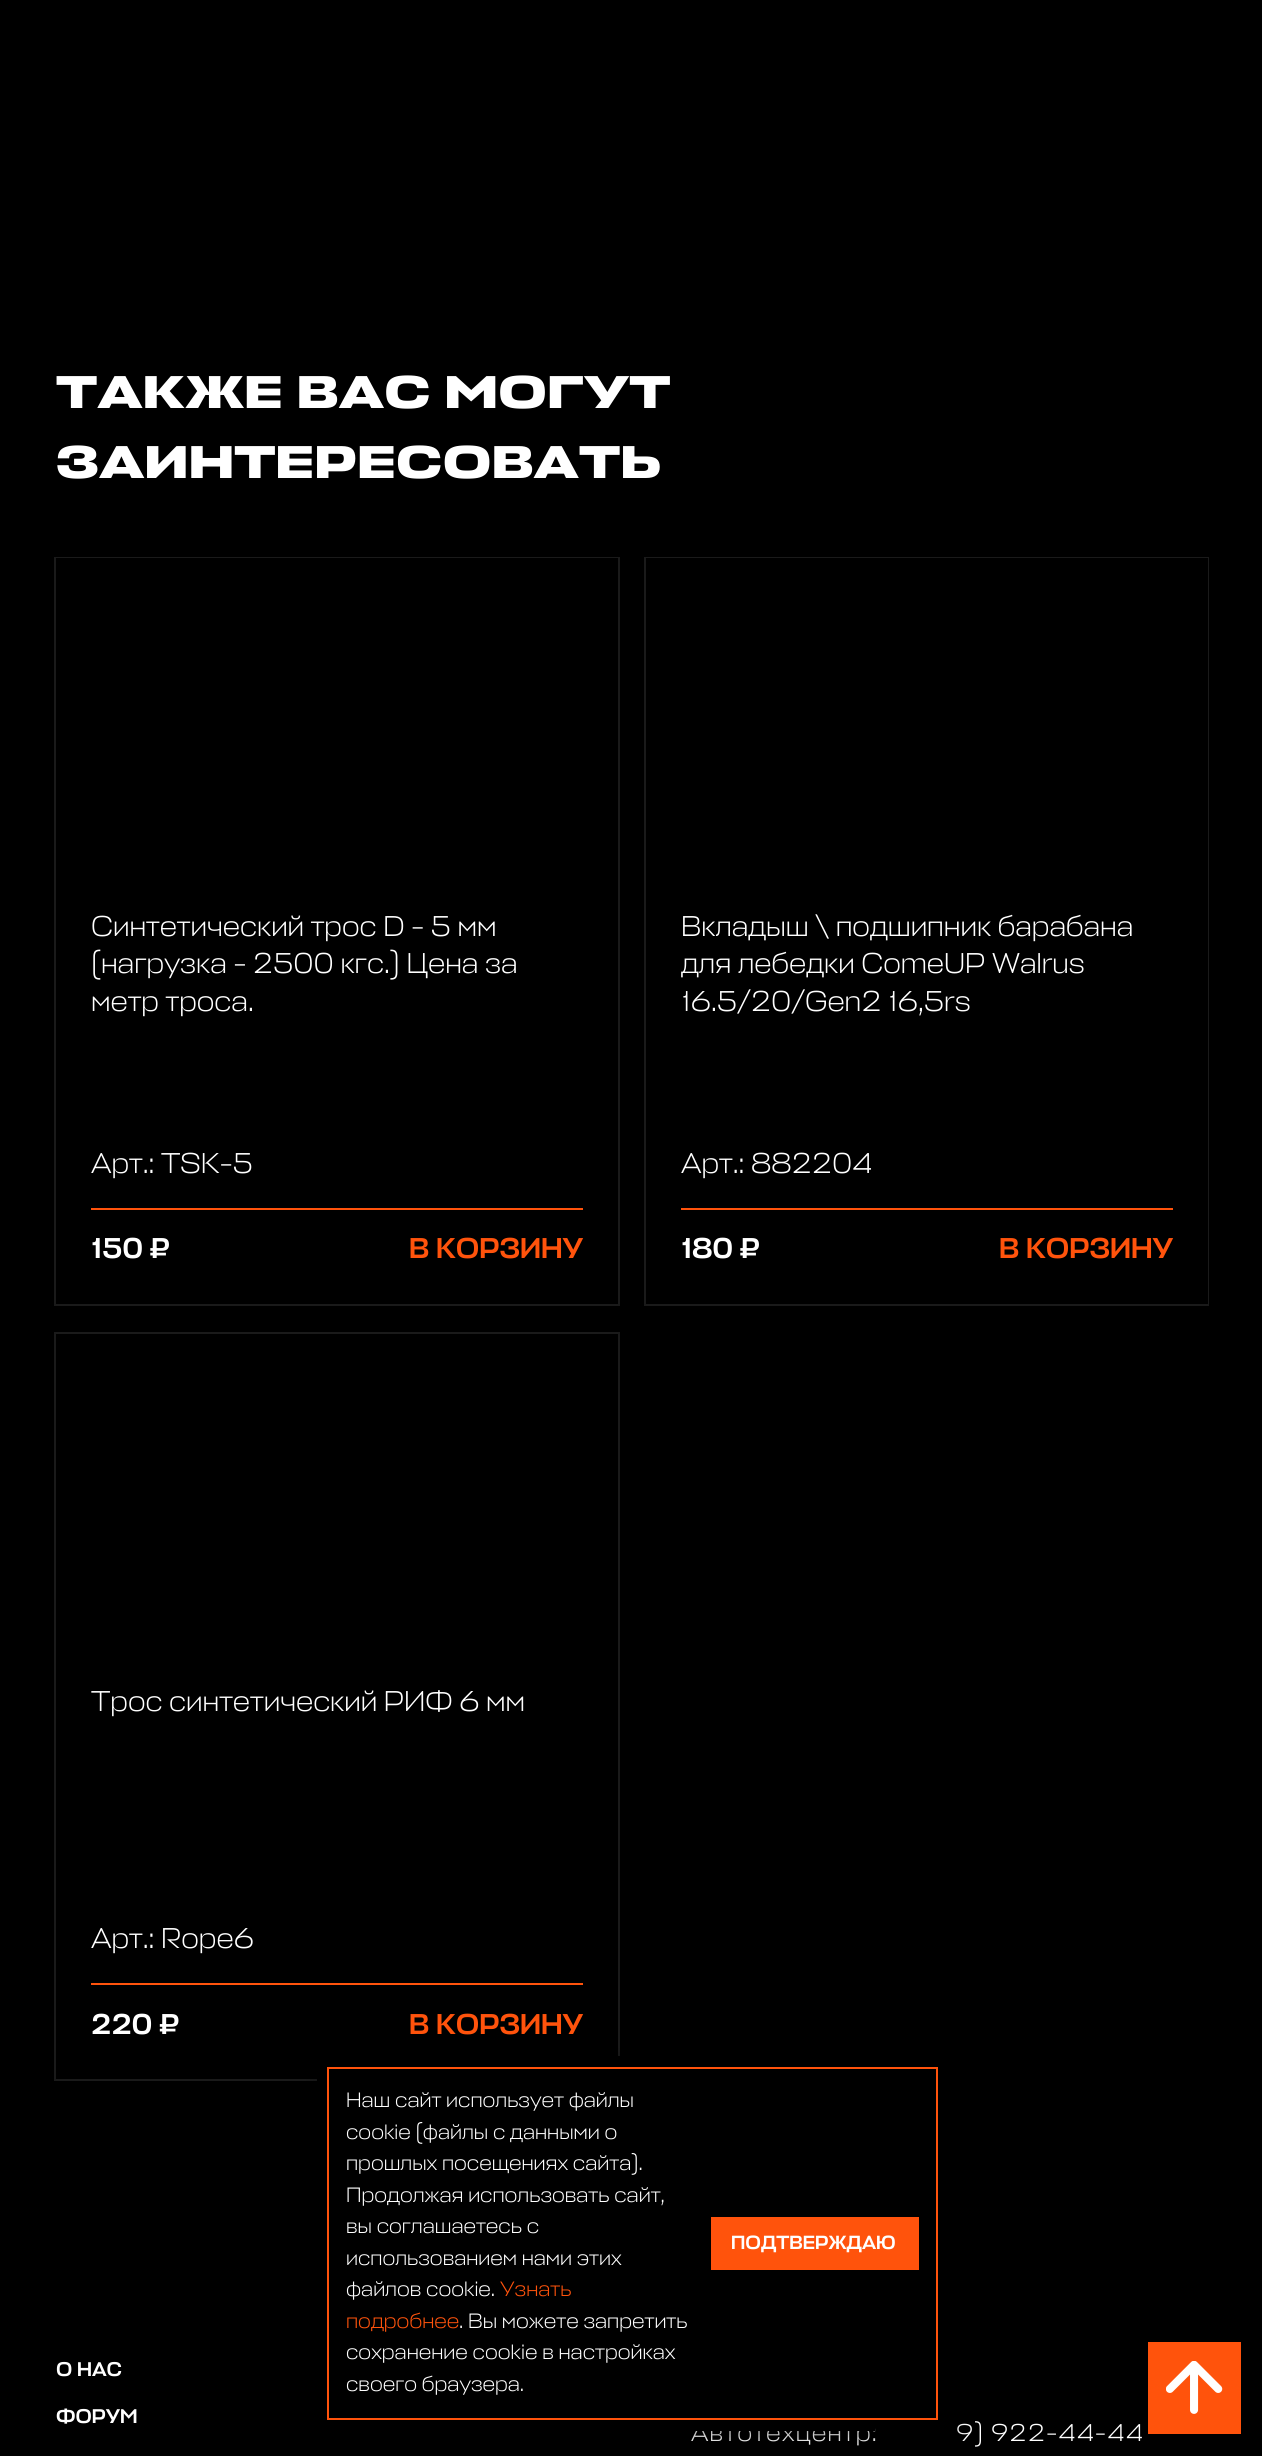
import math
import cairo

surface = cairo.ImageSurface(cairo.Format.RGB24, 1262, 2456)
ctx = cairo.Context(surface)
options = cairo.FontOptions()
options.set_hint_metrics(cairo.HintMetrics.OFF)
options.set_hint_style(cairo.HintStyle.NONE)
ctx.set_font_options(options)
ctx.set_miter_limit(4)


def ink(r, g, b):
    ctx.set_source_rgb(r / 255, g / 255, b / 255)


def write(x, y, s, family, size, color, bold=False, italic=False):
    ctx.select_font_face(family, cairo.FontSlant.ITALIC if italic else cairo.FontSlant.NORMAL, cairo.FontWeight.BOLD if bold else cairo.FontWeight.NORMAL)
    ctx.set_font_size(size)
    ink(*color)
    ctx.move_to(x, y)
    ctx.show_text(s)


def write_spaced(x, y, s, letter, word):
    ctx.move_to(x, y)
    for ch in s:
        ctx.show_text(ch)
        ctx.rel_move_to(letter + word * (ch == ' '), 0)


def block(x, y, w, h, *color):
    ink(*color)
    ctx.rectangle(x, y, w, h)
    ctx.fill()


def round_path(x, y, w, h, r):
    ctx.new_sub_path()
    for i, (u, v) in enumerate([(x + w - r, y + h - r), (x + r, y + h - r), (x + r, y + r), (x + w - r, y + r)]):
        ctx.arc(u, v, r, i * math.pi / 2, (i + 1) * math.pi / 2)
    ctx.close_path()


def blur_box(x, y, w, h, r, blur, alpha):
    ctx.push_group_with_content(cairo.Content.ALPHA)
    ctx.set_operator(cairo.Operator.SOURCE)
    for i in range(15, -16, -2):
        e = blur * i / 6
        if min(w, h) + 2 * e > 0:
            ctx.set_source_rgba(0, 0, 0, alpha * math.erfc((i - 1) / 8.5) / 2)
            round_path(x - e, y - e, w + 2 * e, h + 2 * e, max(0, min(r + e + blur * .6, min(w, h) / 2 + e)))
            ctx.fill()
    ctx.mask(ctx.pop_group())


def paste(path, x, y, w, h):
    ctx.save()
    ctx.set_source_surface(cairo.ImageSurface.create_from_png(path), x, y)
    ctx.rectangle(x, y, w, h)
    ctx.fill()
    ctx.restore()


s1 = dict(family="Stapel", size=46.25, color=(255, 255, 255), bold=True)
s2 = dict(family="Stapel Light", size=28.9, color=(255, 255, 255))
s3 = dict(family="Stapel Medium", size=28.9, color=(255, 255, 255))
s4 = dict(family="Stapel Medium", size=28.9, color=(255, 83, 12))
s5 = dict(family="Stapel Medium", size=20, color=(255, 255, 255))
s6 = dict(family="Stapel Light", size=21, color=(255, 255, 255))
s7 = dict(family="Stapel Light", size=21, color=(255, 83, 12))
s8 = dict(family="Stapel Medium", size=19.25, color=(255, 255, 255))

ink(0, 0, 0)
ctx.paint()
write(56, 408, "ТАКЖЕ ВАС МОГУТ", **s1)
write(56, 478, "ЗАИНТЕРЕСОВАТЬ", **s1)
ctx.rectangle(55, 558, 564, 747)
ink(26, 26, 26)
ctx.stroke()
block(56, 558, 562, 1, 0, 0, 0)
write(91, 936, "Синтетический трос D - 5 мм", **s2)
write(91, 973, "(нагрузка - 2500 кгс.) Цена за", **s2)
write(91, 1011, "метр троса.", **s2)
write(91, 1173, "Арт.: TSK-5", **s2)
block(91, 1208, 492, 2, 255, 83, 12)
write(91, 1258, "150 ₽", **s3)
write(409, 1258, "В КОРЗИНУ", **s4)
ctx.rectangle(645, 558, 563, 747)
ink(26, 26, 26)
ctx.stroke()
block(646, 558, 562, 746, 0, 0, 0)
write(681, 936, "Вкладыш \\ подшипник барабана", **s2)
write(681, 973, "для лебедки ComeUP Walrus", **s2)
write(681, 1011, "16.5/20/Gen2 16,5rs", **s2)
write(681, 1173, "Арт.: 882204", **s2)
block(681, 1208, 492, 2, 255, 83, 12)
write(681, 1258, "180 ₽", **s3)
write(999, 1258, "В КОРЗИНУ", **s4)
ctx.rectangle(55, 1333, 564, 747)
ink(26, 26, 26)
ctx.stroke()
write(91, 1711, "Трос синтетический РИФ 6 мм", **s2)
write(91, 1948, "Арт.: Rope6", **s2)
block(91, 1983, 492, 2, 255, 83, 12)
write(91, 2034, "220 ₽", **s3)
write(409, 2034, "В КОРЗИНУ", **s4)
write(56, 2376, "О НАС", **s5)
write(56, 2423, "ФОРУМ", **s5)
ctx.select_font_face("Stapel Light")
ctx.set_font_size(24.5)
write_spaced(691, 2441, "Автотехцентр:", 1.25, 0)
write_spaced(956, 2441, "9) 922-44-44", 1.25, 0)
ink(0, 0, 0)
blur_box(320, 2062, 632, 374, 0, 9, 0.4)
block(317, 2056, 558, 375, 0, 0, 0)
ctx.rectangle(328, 2068, 609, 351)
ink(255, 83, 12)
ctx.stroke()
write(346, 2107, "Наш сайт использует файлы", **s6)
write(346, 2139, "cookie (файлы с данными о", **s6)
write(346, 2170, "прошлых посещениях сайта).", **s6)
write(346, 2202, "Продолжая использовать сайт,", **s6)
write(346, 2233, "вы соглашаетесь с", **s6)
write(346, 2265, "использованием нами этих", **s6)
write(346, 2296, "файлов cookie.", **s6)
write(500, 2296, "Узнать", **s7)
write(346, 2328, "подробнее", **s7)
write(459, 2328, ". Вы можете запретить", **s6)
write(346, 2359, "сохранение cookie в настройках", **s6)
write(346, 2391, "своего браузера.", **s6)
block(711, 2217, 208, 53, 255, 83, 12)
write(731, 2249, "ПОДТВЕРЖДАЮ", **s8)
block(1148, 2342, 93, 92, 255, 83, 12)
paste("pic1.png", 1166, 2361, 57, 53)
surface.write_to_png("screenshot.png")
